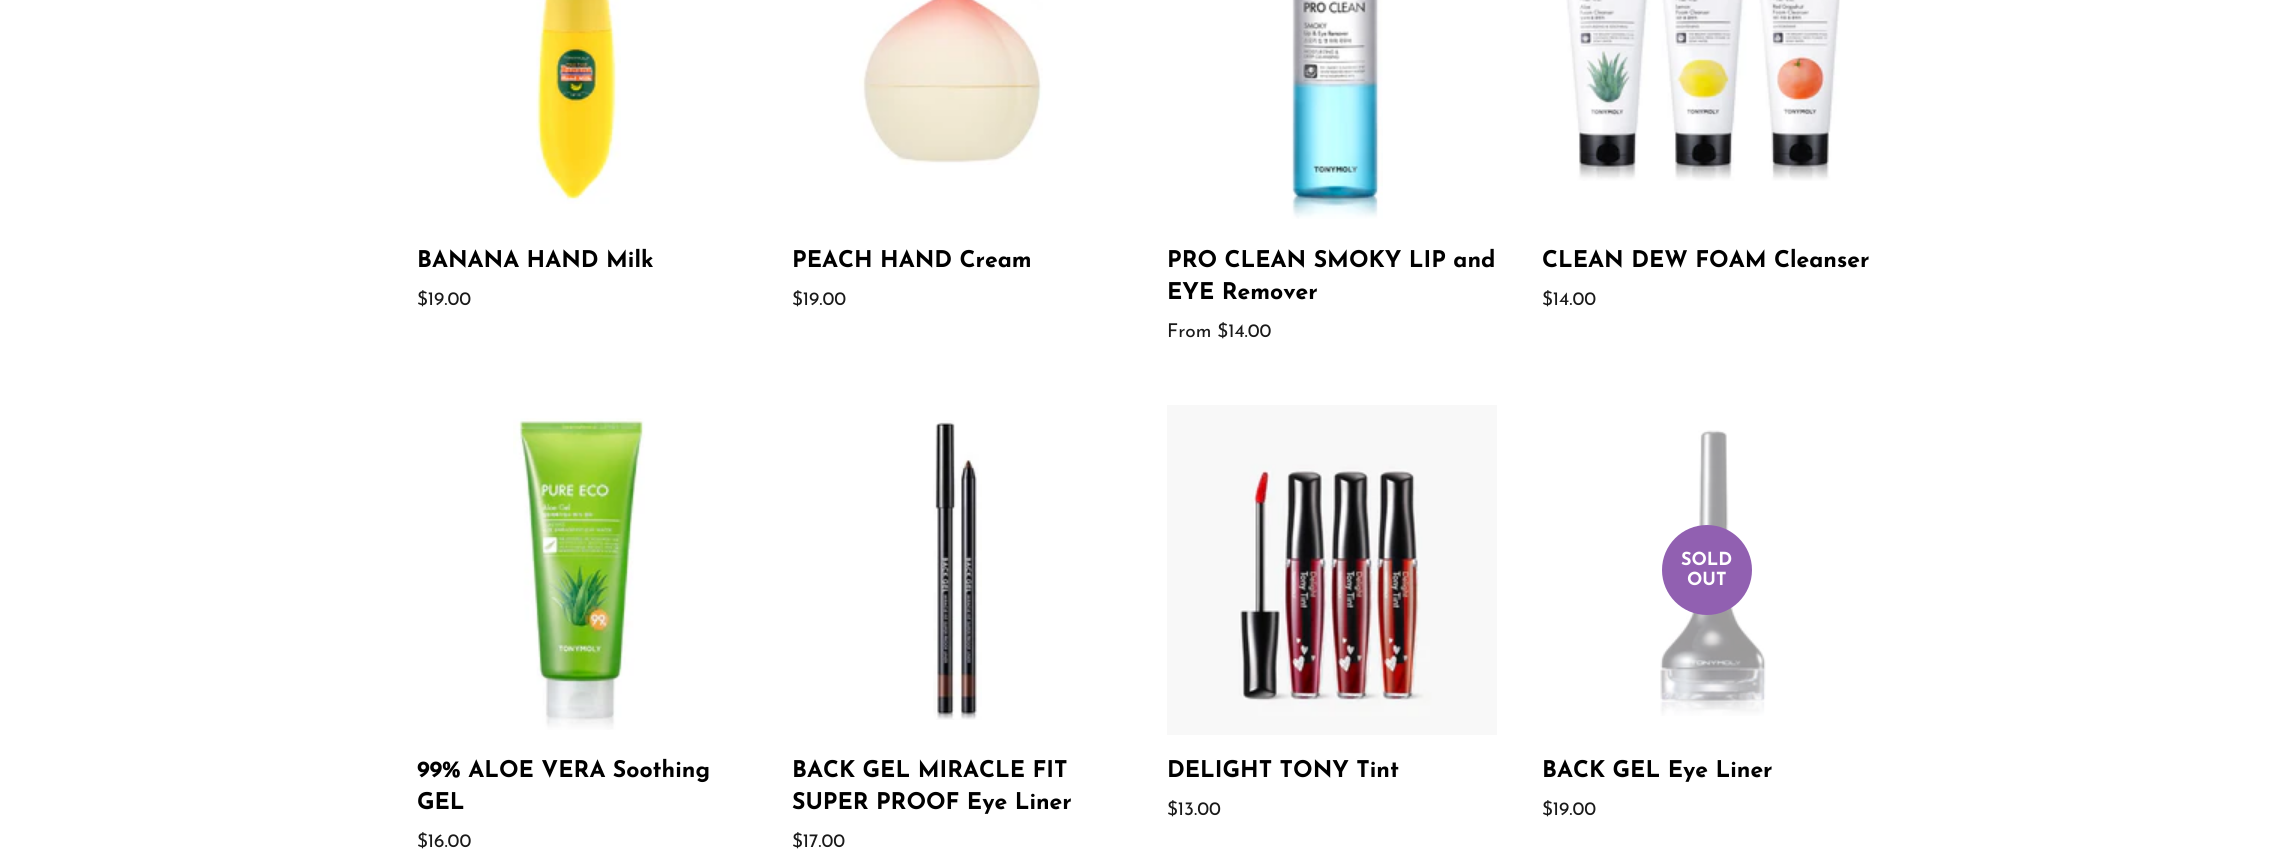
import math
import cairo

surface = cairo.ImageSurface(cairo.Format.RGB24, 2288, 858)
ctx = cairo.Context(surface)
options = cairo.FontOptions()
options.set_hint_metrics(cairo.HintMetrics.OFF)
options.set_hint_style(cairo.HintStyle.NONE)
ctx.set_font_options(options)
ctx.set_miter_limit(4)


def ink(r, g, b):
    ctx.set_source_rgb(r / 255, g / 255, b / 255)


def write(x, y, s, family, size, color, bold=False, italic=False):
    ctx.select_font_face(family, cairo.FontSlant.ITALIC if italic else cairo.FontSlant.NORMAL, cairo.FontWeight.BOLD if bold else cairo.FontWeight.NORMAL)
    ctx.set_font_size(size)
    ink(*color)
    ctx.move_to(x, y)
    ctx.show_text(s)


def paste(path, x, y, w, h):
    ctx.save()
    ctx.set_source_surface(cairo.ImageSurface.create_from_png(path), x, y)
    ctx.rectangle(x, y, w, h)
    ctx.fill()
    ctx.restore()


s1 = dict(family="Josefin Sans", size=23, color=(0, 0, 0), bold=True)
s2 = dict(family="Josefin Sans", size=19, color=(26, 26, 26))
s3 = dict(family="Josefin Sans", size=18, color=(255, 255, 255), bold=True)

ink(255, 255, 255)
ctx.paint()
paste("pic1.png", 536, 0, 85, 204)
write(417, 267, "BANANA HAND Milk", **s1)
write(417, 305, "$19.00", **s2)
paste("pic2.png", 859, 0, 184, 165)
write(792, 267, "PEACH HAND Cream", **s1)
write(792, 305, "$19.00", **s2)
paste("pic3.png", 1291, 0, 92, 219)
write(1167, 267, "PRO CLEAN SMOKY LIP and", **s1)
write(1167, 299, "EYE Remover", **s1)
write(1167, 337, "From $14.00", **s2)
paste("pic4.png", 1566, 0, 274, 181)
write(1542, 267, "CLEAN DEW FOAM Cleanser", **s1)
write(1542, 305, "$14.00", **s2)
paste("pic5.png", 513, 418, 132, 312)
write(417, 777, "99% ALOE VERA Soothing", **s1)
write(417, 809, "GEL", **s1)
write(417, 847, "$16.00", **s2)
paste("pic6.png", 933, 420, 49, 300)
write(792, 777, "BACK GEL MIRACLE FIT", **s1)
write(792, 809, "SUPER PROOF Eye Liner", **s1)
write(792, 847, "$17.00", **s2)
paste("pic7.png", 1167, 405, 330, 330)
write(1167, 777, "DELIGHT TONY Tint", **s1)
write(1167, 815, "$13.00", **s2)
paste("pic8.png", 1660, 430, 106, 286)
ink(145, 96, 177)
ctx.arc(1707, 570, 45, 0, 2 * math.pi)
ctx.fill()
write(1681, 565, "SOLD", **s3)
write(1687, 585, "OUT", **s3)
write(1542, 777, "BACK GEL Eye Liner", **s1)
write(1542, 815, "$19.00", **s2)
surface.write_to_png("screenshot.png")
